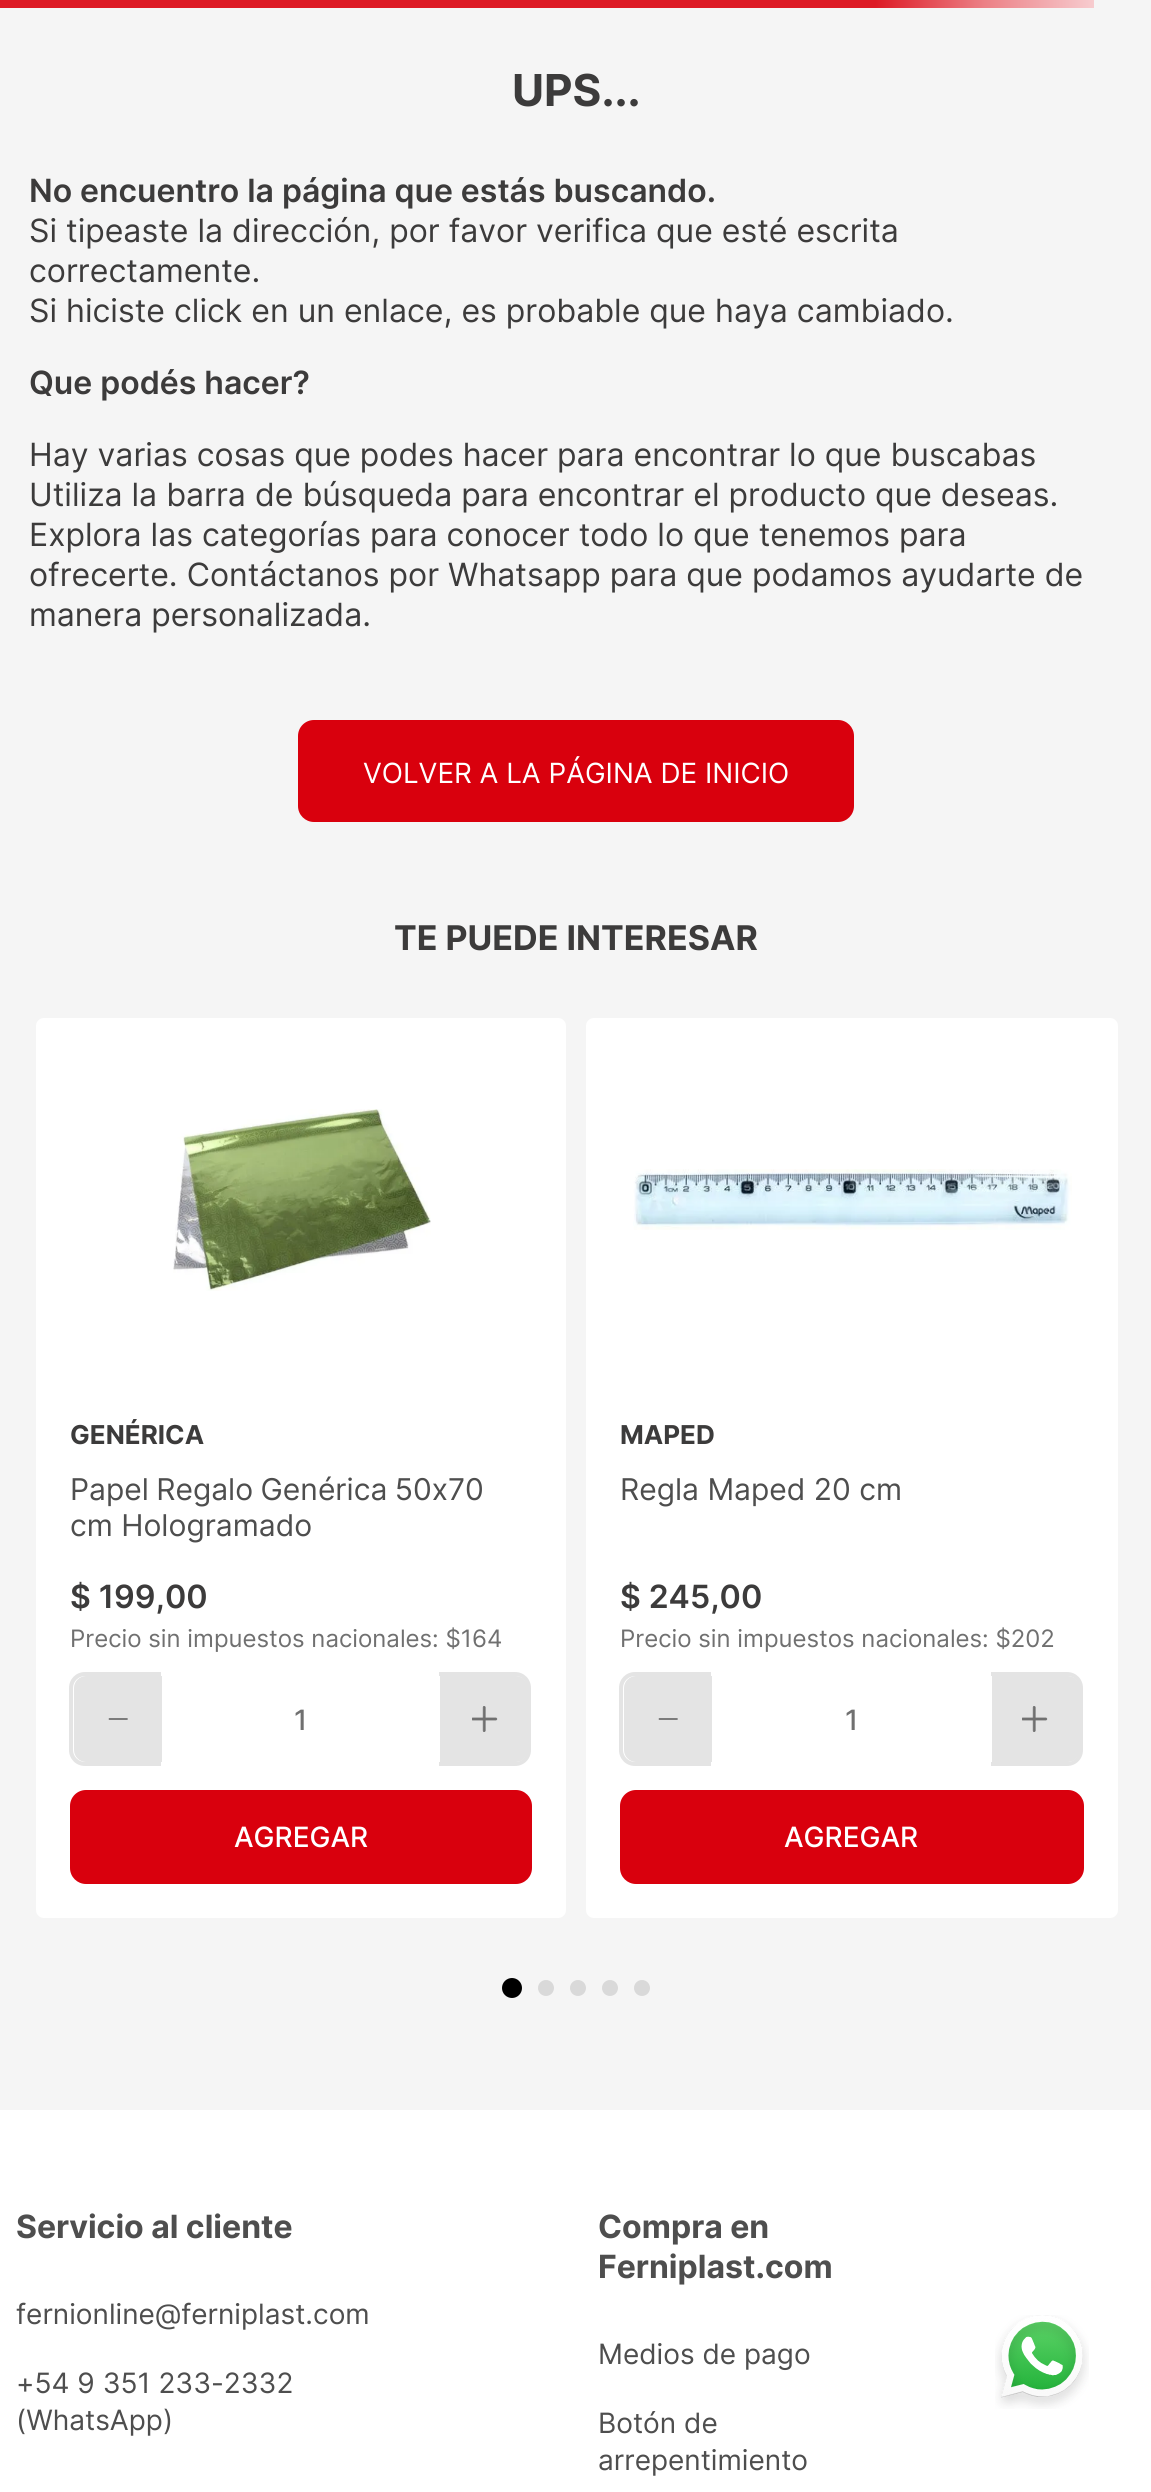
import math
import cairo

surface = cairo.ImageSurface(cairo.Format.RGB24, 1151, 2492)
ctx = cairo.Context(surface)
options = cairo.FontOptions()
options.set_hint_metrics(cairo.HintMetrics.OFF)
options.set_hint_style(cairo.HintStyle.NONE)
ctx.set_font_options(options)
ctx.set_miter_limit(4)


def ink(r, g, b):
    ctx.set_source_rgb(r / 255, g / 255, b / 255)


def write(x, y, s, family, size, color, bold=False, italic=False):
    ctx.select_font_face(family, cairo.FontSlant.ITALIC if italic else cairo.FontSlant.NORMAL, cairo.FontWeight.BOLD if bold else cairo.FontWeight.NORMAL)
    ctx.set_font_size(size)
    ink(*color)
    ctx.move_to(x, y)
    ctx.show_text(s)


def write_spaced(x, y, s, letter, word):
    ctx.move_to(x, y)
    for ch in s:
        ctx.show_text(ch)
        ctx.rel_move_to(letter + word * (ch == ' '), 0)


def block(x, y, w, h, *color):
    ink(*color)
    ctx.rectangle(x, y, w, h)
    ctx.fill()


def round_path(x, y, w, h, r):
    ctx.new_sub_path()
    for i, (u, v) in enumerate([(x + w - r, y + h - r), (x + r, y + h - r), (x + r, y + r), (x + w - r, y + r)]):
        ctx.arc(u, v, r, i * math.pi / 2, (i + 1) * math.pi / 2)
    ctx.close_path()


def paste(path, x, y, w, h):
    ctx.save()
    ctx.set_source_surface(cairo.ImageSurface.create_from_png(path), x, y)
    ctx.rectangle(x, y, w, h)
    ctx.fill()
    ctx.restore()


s1 = dict(family="Inter", size=44, color=(60, 59, 59), bold=True)
s2 = dict(family="Inter SemiBold", size=32, color=(60, 59, 59))
s3 = dict(family="Inter", size=32, color=(60, 59, 59))
s4 = dict(family="Inter", size=27.8, color=(255, 255, 255))
s5 = dict(family="Inter", size=34, color=(60, 59, 59), bold=True)
s6 = dict(family="Inter", size=26, color=(60, 59, 59), bold=True)
s7 = dict(family="Inter", size=30, color=(78, 78, 78))
s8 = dict(family="Inter", size=24, color=(112, 112, 112))
s9 = dict(family="Inter Medium", size=28, color=(112, 112, 112))
s10 = dict(family="Inter Medium", size=28, color=(255, 255, 255))
s11 = dict(family="Inter", size=32, color=(78, 78, 78), bold=True)
s12 = dict(family="Inter", size=28, color=(78, 78, 78))

ink(245, 245, 245)
ctx.paint()
gradient = cairo.LinearGradient(0, 4, 1094, 4)
gradient.add_color_stop_rgba(0.8, 0.867, 0.102, 0.145, 1)
gradient.add_color_stop_rgba(0.9, 0.925, 0.502, 0.525, 1)
gradient.add_color_stop_rgba(1, 0.969, 0.8, 0.812, 1)
ctx.set_source(gradient)
ctx.rectangle(0, 0, 1094, 8)
ctx.fill()
write(512, 106, "UPS...", **s1)
write(29, 202, "No encuentro la página que estás buscando.", **s2)
write(29, 242, "Si tipeaste la dirección, por favor verifica que esté escrita", **s3)
write(29, 282, "correctamente.", **s3)
write(29, 322, "Si hiciste click en un enlace, es probable que haya cambiado.", **s3)
write(29, 394, "Que podés hacer?", **s2)
write(29, 466, "Hay varias cosas que podes hacer para encontrar lo que buscabas", **s3)
write(29, 506, "Utiliza la barra de búsqueda para encontrar el producto que deseas.", **s3)
write(29, 546, "Explora las categorías para conocer todo lo que tenemos para", **s3)
write(29, 586, "ofrecerte. Contáctanos por Whatsapp para que podamos ayudarte de", **s3)
write(29, 626, "manera personalizada.", **s3)
ink(217, 0, 13)
round_path(298, 720, 556, 102, 16)
ctx.fill()
write(363, 783, "VOLVER A LA PÁGINA DE INICIO", **s4)
write(394, 950, "TE PUEDE INTERESAR", **s5)
ink(255, 255, 255)
round_path(36, 1018, 530, 900, 8)
ctx.fill()
paste("pic1.png", 173, 1109, 258, 182)
write(70, 1444, "GENÉRICA", **s6)
ctx.select_font_face("Inter")
ctx.set_font_size(30)
ink(78, 78, 78)
write_spaced(70, 1500, "Papel Regalo Genérica 50x70", 0, -1)
write(70, 1536, "cm Hologramado", **s7)
write(70, 1608, "$ 199,00", **s2)
write(70, 1647, "Precio sin impuestos nacionales: $164", **s8)
ink(228, 228, 228)
ctx.new_path()
ctx.move_to(86, 1676)
ctx.line_to(162, 1676)
ctx.line_to(162, 1762)
ctx.line_to(86, 1762)
ctx.curve_to(79.5, 1762, 74, 1756.5, 74, 1750)
ctx.line_to(74, 1688)
ctx.curve_to(74, 1681.5, 79.5, 1676, 86, 1676)
ctx.close_path()
ctx.fill()
ctx.set_fill_rule(cairo.FillRule.EVEN_ODD)
ctx.new_path()
ctx.move_to(85, 1672)
ctx.line_to(161, 1672)
ctx.line_to(161, 1766)
ctx.line_to(85, 1766)
ctx.curve_to(76, 1766, 69, 1759, 69, 1750)
ctx.line_to(69, 1688)
ctx.curve_to(69, 1679, 76, 1672, 85, 1672)
ctx.close_path()
ctx.move_to(85, 1676)
ctx.line_to(161, 1676)
ctx.line_to(161, 1762)
ctx.line_to(85, 1762)
ctx.curve_to(79, 1762, 73, 1757, 73, 1750)
ctx.line_to(73, 1688)
ctx.curve_to(73, 1681, 79, 1676, 85, 1676)
ctx.close_path()
ctx.fill()
paste("pic2.png", 108, 1718, 20, 2)
write(294, 1730, "1", **s9)
ink(228, 228, 228)
ctx.new_path()
ctx.move_to(440, 1676)
ctx.line_to(516, 1676)
ctx.curve_to(522.5, 1676, 528, 1681.5, 528, 1688)
ctx.line_to(528, 1750)
ctx.curve_to(528, 1756.5, 522.5, 1762, 516, 1762)
ctx.line_to(440, 1762)
ctx.close_path()
ctx.fill()
ctx.new_path()
ctx.move_to(439, 1672)
ctx.line_to(515, 1672)
ctx.curve_to(524, 1672, 531, 1679, 531, 1688)
ctx.line_to(531, 1750)
ctx.curve_to(531, 1759, 524, 1766, 515, 1766)
ctx.line_to(439, 1766)
ctx.close_path()
ctx.move_to(439, 1676)
ctx.line_to(515, 1676)
ctx.curve_to(522, 1676, 527, 1681, 527, 1688)
ctx.line_to(527, 1750)
ctx.curve_to(527, 1757, 522, 1762, 515, 1762)
ctx.line_to(439, 1762)
ctx.close_path()
ctx.fill()
paste("pic3.png", 472, 1706, 26, 26)
ink(217, 0, 13)
round_path(70, 1790, 462, 94, 16)
ctx.fill()
write(234, 1847, "AGREGAR", **s10)
round_path(586, 1018, 532, 900, 8)
ctx.fill()
paste("pic4.png", 633, 1169, 439, 61)
write(620, 1444, "MAPED", **s6)
write(620, 1500, "Regla Maped 20 cm", **s7)
write(620, 1608, "$ 245,00", **s2)
write(620, 1647, "Precio sin impuestos nacionales: $202", **s8)
ink(228, 228, 228)
ctx.new_path()
ctx.move_to(636, 1676)
ctx.line_to(712, 1676)
ctx.line_to(712, 1762)
ctx.line_to(636, 1762)
ctx.curve_to(629.5, 1762, 624, 1756.5, 624, 1750)
ctx.line_to(624, 1688)
ctx.curve_to(624, 1681.5, 629.5, 1676, 636, 1676)
ctx.close_path()
ctx.fill()
ctx.new_path()
ctx.move_to(635, 1672)
ctx.line_to(711, 1672)
ctx.line_to(711, 1766)
ctx.line_to(635, 1766)
ctx.curve_to(626, 1766, 619, 1759, 619, 1750)
ctx.line_to(619, 1688)
ctx.curve_to(619, 1679, 626, 1672, 635, 1672)
ctx.close_path()
ctx.move_to(635, 1676)
ctx.line_to(711, 1676)
ctx.line_to(711, 1762)
ctx.line_to(635, 1762)
ctx.curve_to(629, 1762, 623, 1757, 623, 1750)
ctx.line_to(623, 1688)
ctx.curve_to(623, 1681, 629, 1676, 635, 1676)
ctx.close_path()
ctx.fill()
paste("pic2.png", 658, 1718, 20, 2)
write(845, 1730, "1", **s9)
ink(228, 228, 228)
ctx.new_path()
ctx.move_to(992, 1676)
ctx.line_to(1068, 1676)
ctx.curve_to(1074.5, 1676, 1080, 1681.5, 1080, 1688)
ctx.line_to(1080, 1750)
ctx.curve_to(1080, 1756.5, 1074.5, 1762, 1068, 1762)
ctx.line_to(992, 1762)
ctx.close_path()
ctx.fill()
ctx.new_path()
ctx.move_to(991, 1672)
ctx.line_to(1067, 1672)
ctx.curve_to(1076, 1672, 1083, 1679, 1083, 1688)
ctx.line_to(1083, 1750)
ctx.curve_to(1083, 1759, 1076, 1766, 1067, 1766)
ctx.line_to(991, 1766)
ctx.close_path()
ctx.move_to(991, 1676)
ctx.line_to(1067, 1676)
ctx.curve_to(1074, 1676, 1079, 1681, 1079, 1688)
ctx.line_to(1079, 1750)
ctx.curve_to(1079, 1757, 1074, 1762, 1067, 1762)
ctx.line_to(991, 1762)
ctx.close_path()
ctx.fill()
paste("pic3.png", 1022, 1706, 26, 26)
ink(217, 0, 13)
round_path(620, 1790, 464, 94, 16)
ctx.fill()
write(784, 1847, "AGREGAR", **s10)
ink(0, 0, 0)
ctx.new_path()
ctx.arc(512, 1988, 10, 0, 2 * math.pi)
ctx.fill()
ink(217, 217, 217)
ctx.arc(546, 1988, 8, 0, 2 * math.pi)
ctx.fill()
ctx.arc(578, 1988, 8, 0, 2 * math.pi)
ctx.fill()
ctx.arc(610, 1988, 8, 0, 2 * math.pi)
ctx.fill()
ctx.arc(642, 1988, 8, 0, 2 * math.pi)
ctx.fill()
block(0, 2110, 1151, 382, 255, 255, 255)
write(16, 2238, "Servicio al cliente", **s11)
write(16, 2324, "fernionline@ferniplast.com", **s12)
write(16, 2393, "+54 9 351 233-2332", **s12)
write(16, 2430, "(WhatsApp)", **s12)
write(598, 2238, "Compra en", **s11)
write(598, 2278, "Ferniplast.com", **s11)
write(598, 2364, "Medios de pago", **s12)
write(598, 2433, "Botón de", **s12)
write(598, 2470, "arrepentimiento", **s12)
paste("pic5.png", 995, 2315, 94, 94)
surface.write_to_png("screenshot.png")
